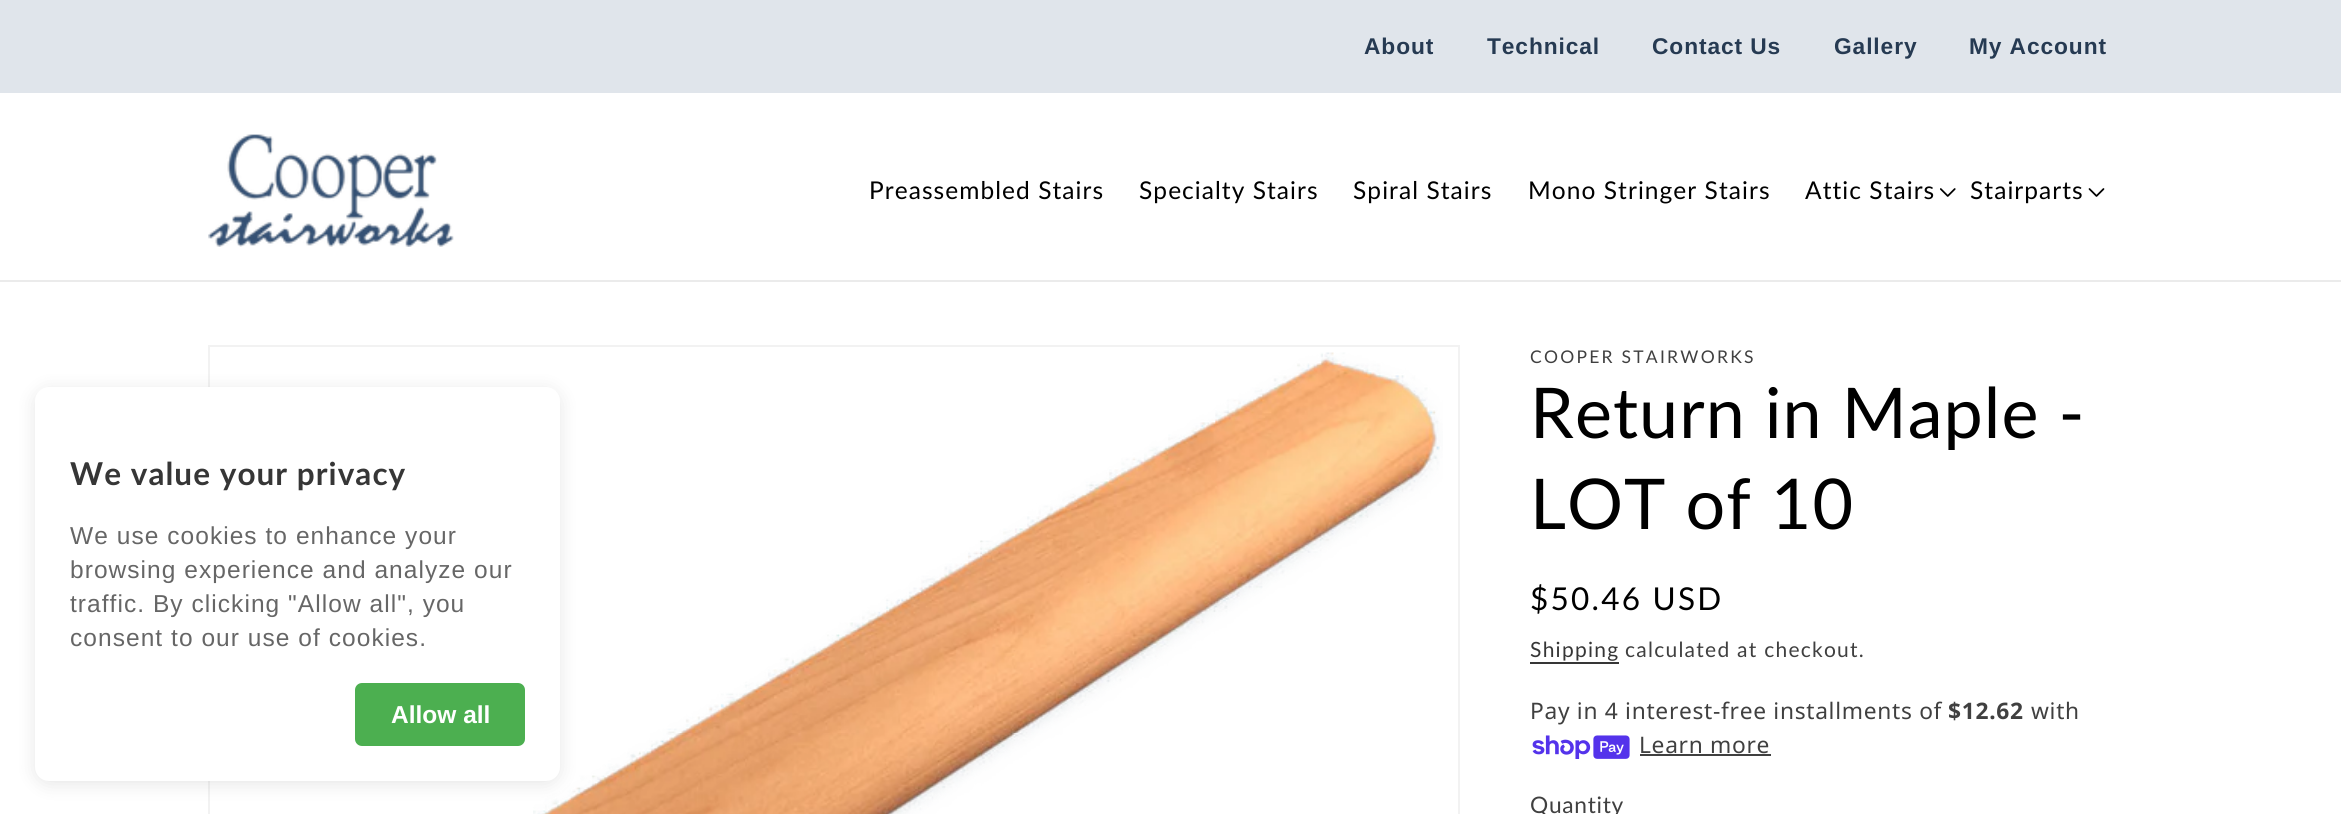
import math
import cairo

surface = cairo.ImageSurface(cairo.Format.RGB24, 2341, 814)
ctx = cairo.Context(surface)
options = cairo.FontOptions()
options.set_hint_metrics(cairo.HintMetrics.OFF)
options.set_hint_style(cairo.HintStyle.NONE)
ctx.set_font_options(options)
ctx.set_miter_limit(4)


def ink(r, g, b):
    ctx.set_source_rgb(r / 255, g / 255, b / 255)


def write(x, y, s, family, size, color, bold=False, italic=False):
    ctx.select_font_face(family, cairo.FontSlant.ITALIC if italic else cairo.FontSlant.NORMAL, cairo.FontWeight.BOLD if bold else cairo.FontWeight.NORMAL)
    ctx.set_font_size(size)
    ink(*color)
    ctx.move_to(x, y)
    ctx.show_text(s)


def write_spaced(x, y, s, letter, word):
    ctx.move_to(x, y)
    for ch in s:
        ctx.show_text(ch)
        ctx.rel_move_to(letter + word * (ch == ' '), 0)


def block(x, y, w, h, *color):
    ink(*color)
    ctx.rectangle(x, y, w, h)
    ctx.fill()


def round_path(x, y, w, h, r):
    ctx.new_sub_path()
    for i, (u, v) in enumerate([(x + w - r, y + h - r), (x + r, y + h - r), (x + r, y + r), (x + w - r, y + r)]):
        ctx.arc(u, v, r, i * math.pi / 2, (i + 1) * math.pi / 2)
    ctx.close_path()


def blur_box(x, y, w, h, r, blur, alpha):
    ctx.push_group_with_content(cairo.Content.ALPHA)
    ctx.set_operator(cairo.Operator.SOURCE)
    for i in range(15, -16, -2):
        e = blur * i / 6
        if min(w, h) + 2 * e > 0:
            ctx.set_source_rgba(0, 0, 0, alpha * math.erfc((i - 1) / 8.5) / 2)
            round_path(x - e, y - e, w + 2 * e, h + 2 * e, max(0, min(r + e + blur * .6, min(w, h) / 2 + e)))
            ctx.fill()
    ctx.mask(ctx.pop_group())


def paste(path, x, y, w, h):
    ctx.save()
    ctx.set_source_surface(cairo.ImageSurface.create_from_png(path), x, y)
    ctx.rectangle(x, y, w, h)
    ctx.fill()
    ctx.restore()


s1 = dict(family="Liberation Sans", size=24.5, color=(255, 255, 255), bold=True)

ink(255, 255, 255)
ctx.paint()
block(0, 0, 2341, 93, 224, 229, 235)
ctx.select_font_face("Liberation Sans", cairo.FontSlant.NORMAL, cairo.FontWeight.BOLD)
ctx.set_font_size(22.75)
ink(38, 58, 82)
write_spaced(1364, 54, "About", 0.9, 0)
write_spaced(1487, 54, "Technical", 0.9, 0)
write_spaced(1652, 54, "Contact Us", 0.9, 0)
write_spaced(1834, 54, "Gallery", 0.9, 0)
write_spaced(1969, 54, "My Account", 0.9, 0)
block(0, 280, 2341, 2, 235, 235, 235)
paste("pic1.png", 208, 134, 246, 113)
ctx.select_font_face("Lato")
ctx.set_font_size(24.5)
ink(0, 0, 0)
write_spaced(869, 199, "Preassembled Stairs", 1.05, 0)
write_spaced(1139, 199, "Specialty Stairs", 1.05, 0)
write_spaced(1353, 199, "Spiral Stairs", 1.05, 0)
write_spaced(1528, 199, "Mono Stringer Stairs", 1.05, 0)
write_spaced(1805, 199, "Attic Stairs", 1.05, 0)
paste("pic2.png", 1940, 188, 16, 9)
write_spaced(1970, 199, "Stairparts", 1.05, 0)
paste("pic3.png", 2088, 188, 17, 9)
ctx.rectangle(209, 346, 1250, 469)
ink(242, 242, 242)
ctx.stroke()
paste("pic4.png", 533, 352, 910, 462)
ink(0, 0, 0)
blur_box(35, 390, 525, 394, 14, 9, 0.1)
ink(255, 255, 255)
round_path(35, 387, 525, 394, 14)
ctx.fill()
ctx.select_font_face("Lato", cairo.FontSlant.NORMAL, cairo.FontWeight.BOLD)
ctx.set_font_size(31.5)
ink(54, 54, 54)
write_spaced(70, 485, "We value your privacy", 1.05, 0)
ctx.select_font_face("Liberation Sans")
ctx.set_font_size(24.5)
ink(102, 102, 102)
write_spaced(70, 544, "We use cookies to enhance your", 1.05, 0)
write_spaced(70, 578, "browsing experience and analyze our", 1.05, 0)
write_spaced(70, 612, "traffic. By clicking \"Allow all\", you", 1.05, 0)
write_spaced(70, 646, "consent to our use of cookies.", 1.05, 0)
ink(76, 175, 80)
round_path(355, 683, 170, 63, 7)
ctx.fill()
write(391, 723, "Allow all", **s1)
ctx.select_font_face("Lato")
ctx.set_font_size(17.5)
ink(64, 64, 64)
write_spaced(1530, 363, "COOPER STAIRWORKS", 2.25, 0)
ctx.set_font_size(70)
ink(0, 0, 0)
write_spaced(1530, 438, "Return in Maple -", 1.05, 0)
write_spaced(1530, 529, "LOT of 10", 1.05, 0)
ctx.set_font_size(31.5)
write_spaced(1530, 610, "$50.46 USD", 2.25, 0)
ctx.set_font_size(21)
ink(54, 54, 54)
write_spaced(1530, 657, "Shipping", 1.25, 0)
block(1530, 662, 89, 2, 54, 54, 54)
ink(64, 64, 64)
write_spaced(1625, 657, "calculated at checkout.", 1.25, 0)
ctx.select_font_face("Noto Sans")
ctx.set_font_size(22.75)
write_spaced(1530, 719, "Pay in 4 interest-free installments of", 0.7, 0)
ctx.select_font_face("Noto Sans", cairo.FontSlant.NORMAL, cairo.FontWeight.BOLD)
write_spaced(1948, 719, "$12.62", 0.7, 0)
ctx.select_font_face("Noto Sans")
write_spaced(2031, 719, "with", 0.7, 0)
paste("pic5.png", 1532, 735, 98, 24)
write_spaced(1639, 753, "Learn more", 0.7, 0)
block(1640, 754, 131, 2, 64, 64, 64)
ctx.select_font_face("Lato")
write_spaced(1530, 813, "Quantity", 0.7, 0)
surface.write_to_png("screenshot.png")
